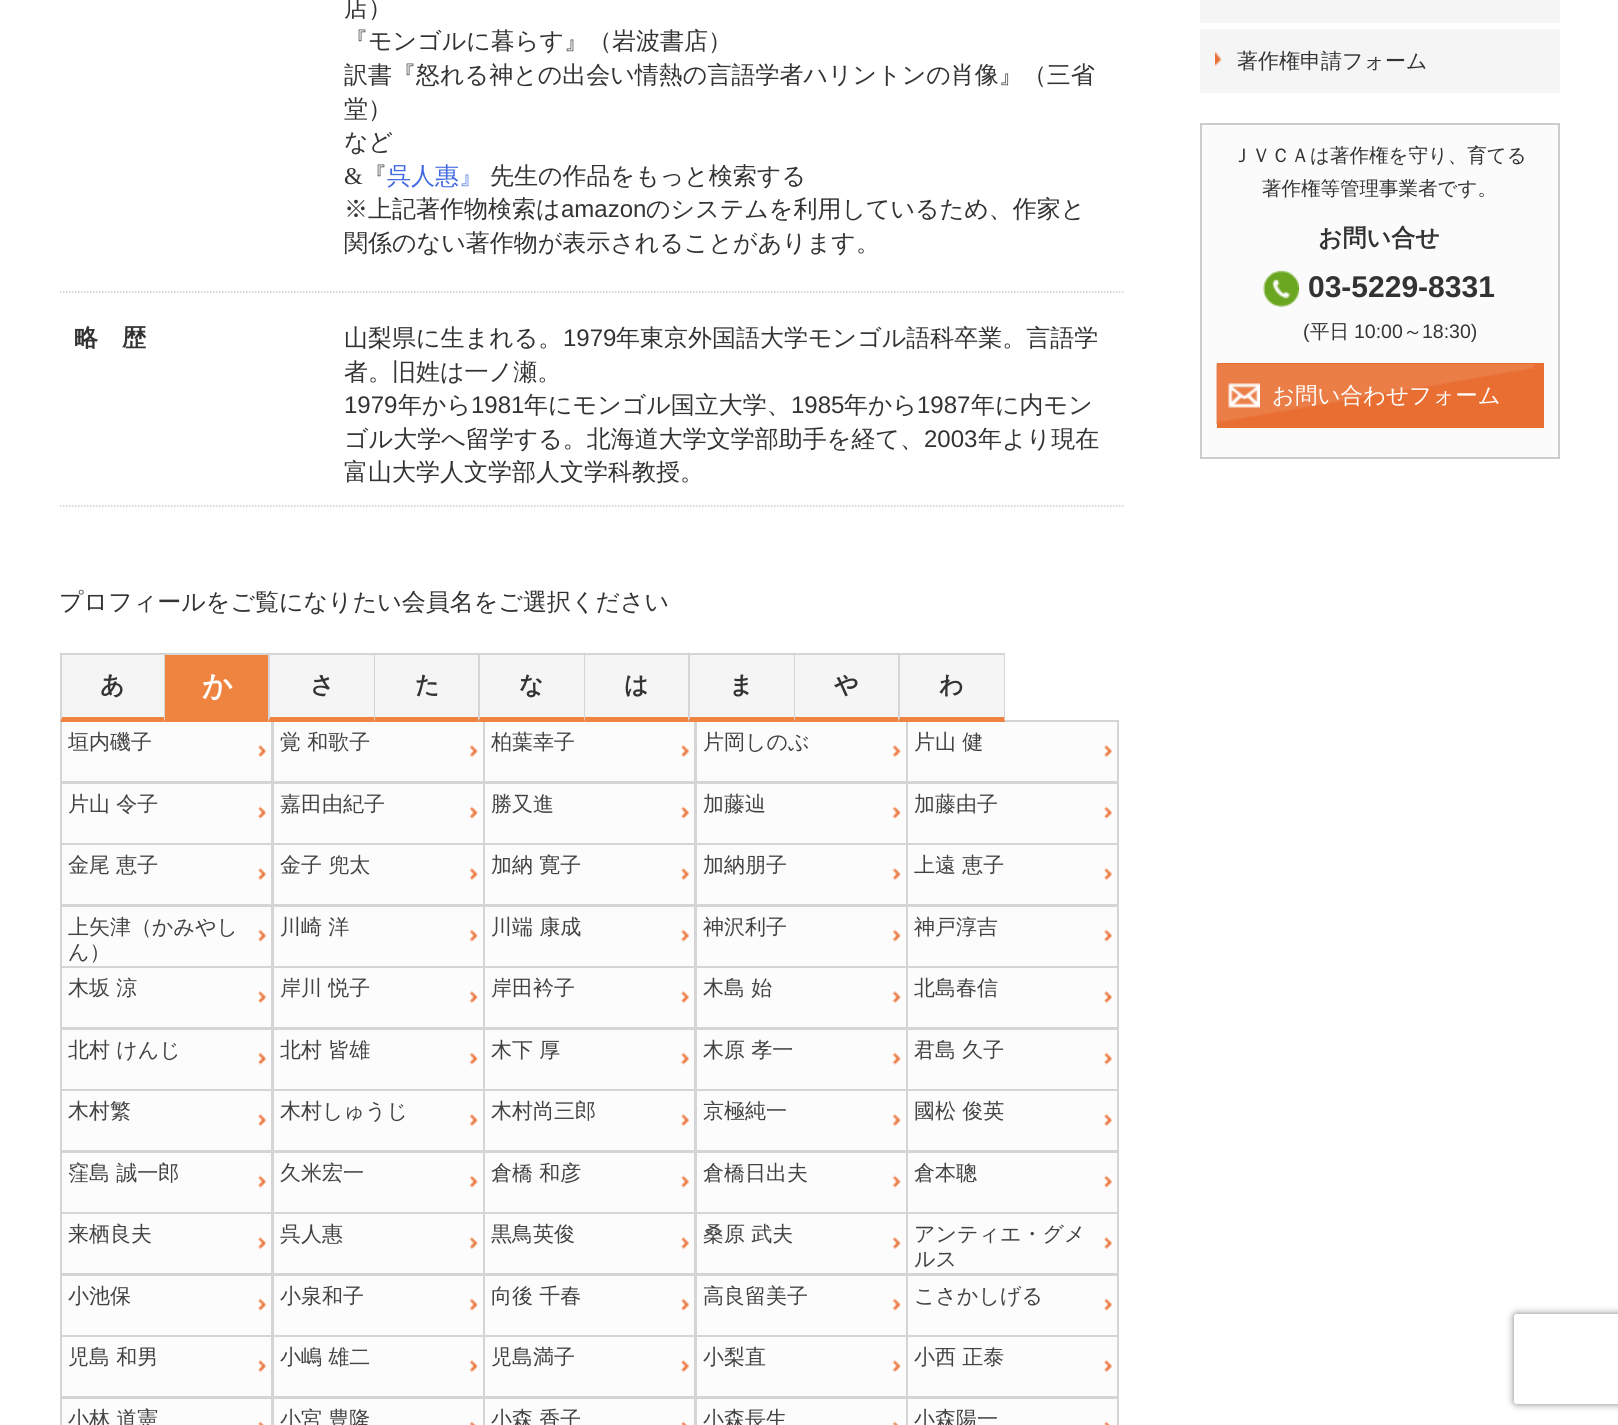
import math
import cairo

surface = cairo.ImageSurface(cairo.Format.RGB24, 1618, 1425)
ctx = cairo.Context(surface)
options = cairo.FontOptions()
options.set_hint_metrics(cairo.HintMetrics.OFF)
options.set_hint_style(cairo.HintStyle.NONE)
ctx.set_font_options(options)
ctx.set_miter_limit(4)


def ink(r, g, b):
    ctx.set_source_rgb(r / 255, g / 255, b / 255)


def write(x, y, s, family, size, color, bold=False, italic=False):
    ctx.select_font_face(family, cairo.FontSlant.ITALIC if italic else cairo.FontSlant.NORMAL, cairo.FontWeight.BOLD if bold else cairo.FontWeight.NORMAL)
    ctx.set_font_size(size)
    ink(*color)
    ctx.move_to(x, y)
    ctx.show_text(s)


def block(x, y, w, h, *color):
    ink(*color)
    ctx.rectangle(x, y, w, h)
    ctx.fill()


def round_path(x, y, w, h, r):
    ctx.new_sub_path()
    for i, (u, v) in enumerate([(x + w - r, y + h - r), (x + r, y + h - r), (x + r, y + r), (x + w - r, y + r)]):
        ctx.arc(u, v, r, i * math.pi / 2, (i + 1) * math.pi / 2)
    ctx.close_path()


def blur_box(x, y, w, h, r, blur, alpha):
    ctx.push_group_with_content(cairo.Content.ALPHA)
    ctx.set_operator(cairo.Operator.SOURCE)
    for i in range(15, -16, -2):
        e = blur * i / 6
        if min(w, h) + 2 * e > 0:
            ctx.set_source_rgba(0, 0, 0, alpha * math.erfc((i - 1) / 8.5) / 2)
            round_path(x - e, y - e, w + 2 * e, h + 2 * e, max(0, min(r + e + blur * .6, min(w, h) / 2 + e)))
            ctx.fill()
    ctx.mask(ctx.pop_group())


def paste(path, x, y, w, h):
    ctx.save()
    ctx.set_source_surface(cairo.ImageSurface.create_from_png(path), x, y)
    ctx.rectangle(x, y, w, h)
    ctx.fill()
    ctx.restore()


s1 = dict(family="WenQuanYi Zen Hei Medium", size=24, color=(51, 51, 51))
s2 = dict(family="Liberation Serif", size=24, color=(51, 51, 51))
s3 = dict(family="WenQuanYi Zen Hei Medium", size=24, color=(65, 105, 225))
s4 = dict(family="Liberation Sans", size=24, color=(51, 51, 51))
s5 = dict(family="WenQuanYi Zen Hei", size=24, color=(51, 51, 51), bold=True)
s6 = dict(family="WenQuanYi Zen Hei", size=30, color=(255, 255, 255), bold=True)
s7 = dict(family="WenQuanYi Zen Hei Medium", size=21, color=(66, 66, 66))
s8 = dict(family="WenQuanYi Zen Hei Medium", size=21, color=(51, 51, 51))
s9 = dict(family="WenQuanYi Zen Hei Medium", size=19.5, color=(51, 51, 51))
s10 = dict(family="Liberation Sans", size=30, color=(51, 51, 51), bold=True)
s11 = dict(family="Liberation Sans", size=19.5, color=(51, 51, 51))
s12 = dict(family="WenQuanYi Zen Hei Medium", size=22.5, color=(255, 255, 255))

ink(255, 255, 255)
ctx.paint()
ctx.new_path()
ctx.move_to(60, 292)
ctx.line_to(1125, 292)
ink(204, 204, 204)
ctx.set_line_width(1.5)
ctx.set_dash([1.5, 1.5])
ctx.stroke()
write(344, 16, "店）", **s1)
write(344, 49, "『モンゴルに暮らす』（岩波書店）", **s1)
write(344, 83, "訳書『怒れる神との出会い情熱の言語学者ハリントンの肖像』（三省", **s1)
write(344, 117, "堂）", **s1)
write(344, 150, "など", **s1)
write(344, 184, "&", **s2)
write(363, 184, "『", **s1)
write(387, 184, "呉人惠』", **s3)
write(490, 184, "先生の作品をもっと検索する", **s1)
write(344, 217, "※上記著作物検索は", **s1)
write(561, 217, "amazon", **s4)
write(646, 217, "のシステムを利用しているため、作家と", **s1)
write(344, 251, "関係のない著作物が表示されることがあります。", **s1)
write(74, 346, "略　歴", **s5)
ctx.new_path()
ctx.move_to(60, 506)
ctx.line_to(1125, 506)
ink(204, 204, 204)
ctx.stroke()
write(344, 346, "山梨県に生まれる。", **s1)
write(563, 346, "1979", **s4)
write(616, 346, "年東京外国語大学モンゴル語科卒業。言語学", **s1)
write(344, 380, "者。旧姓は一ノ瀬。", **s1)
write(344, 413, "1979", **s4)
write(398, 413, "年から", **s1)
write(471, 413, "1981", **s4)
write(524, 413, "年にモンゴル国立大学、", **s1)
write(791, 413, "1985", **s4)
write(844, 413, "年から", **s1)
write(917, 413, "1987", **s4)
write(971, 413, "年に内モン", **s1)
write(344, 447, "ゴル大学へ留学する。北海道大学文学部助手を経て、", **s1)
write(924, 447, "2003", **s4)
write(978, 447, "年より現在", **s1)
write(344, 480, "富山大学人文学部人文学科教授。", **s1)
write(59, 610, "プロフィールをご覧になりたい会員名をご選択ください", **s1)
block(62, 655, 102, 62, 245, 245, 245)
block(60, 653, 945, 2, 213, 213, 213)
block(62, 722, 209, 59, 252, 252, 252)
paste("pic1.png", 257, 745, 9, 12)
ctx.rectangle(61, 721, 211, 61)
ink(213, 213, 213)
ctx.set_line_width(2)
ctx.set_dash([])
ctx.stroke()
ink(239, 131, 64)
ctx.new_path()
ctx.move_to(165, 722)
ctx.line_to(60, 722)
ctx.line_to(62, 717)
ctx.line_to(164, 717)
ctx.close_path()
ctx.fill()
ink(213, 213, 213)
ctx.new_path()
ctx.move_to(60, 722)
ctx.line_to(60, 652)
ctx.line_to(62, 654)
ctx.line_to(62, 717)
ctx.close_path()
ctx.fill()
write(100, 693, "あ", **s5)
block(165, 655, 103, 62, 239, 131, 64)
ctx.new_path()
ctx.move_to(270, 722)
ctx.line_to(164, 722)
ctx.line_to(165, 717)
ctx.line_to(268, 717)
ctx.close_path()
ctx.fill()
ink(213, 213, 213)
ctx.new_path()
ctx.move_to(164, 722)
ctx.line_to(164, 652)
ctx.line_to(165, 654)
ctx.line_to(165, 717)
ctx.close_path()
ctx.fill()
write(202, 696, "か", **s6)
block(270, 655, 104, 62, 245, 245, 245)
block(274, 722, 209, 59, 252, 252, 252)
paste("pic2.png", 469, 745, 9, 12)
ctx.rectangle(273, 721, 211, 61)
ink(213, 213, 213)
ctx.stroke()
ink(239, 131, 64)
ctx.new_path()
ctx.move_to(375, 722)
ctx.line_to(268, 722)
ctx.line_to(270, 717)
ctx.line_to(374, 717)
ctx.close_path()
ctx.fill()
ink(213, 213, 213)
ctx.new_path()
ctx.move_to(268, 722)
ctx.line_to(268, 652)
ctx.line_to(270, 654)
ctx.line_to(270, 717)
ctx.close_path()
ctx.fill()
write(310, 693, "さ", **s5)
block(375, 655, 103, 62, 245, 245, 245)
ink(239, 131, 64)
ctx.new_path()
ctx.move_to(480, 722)
ctx.line_to(374, 722)
ctx.line_to(375, 717)
ctx.line_to(478, 717)
ctx.close_path()
ctx.fill()
ink(213, 213, 213)
ctx.new_path()
ctx.move_to(374, 722)
ctx.line_to(374, 652)
ctx.line_to(375, 654)
ctx.line_to(375, 717)
ctx.close_path()
ctx.fill()
write(415, 693, "た", **s5)
block(480, 655, 104, 62, 245, 245, 245)
block(485, 722, 209, 59, 252, 252, 252)
paste("pic3.png", 680, 745, 9, 12)
ctx.rectangle(484, 721, 211, 61)
ink(213, 213, 213)
ctx.stroke()
ink(239, 131, 64)
ctx.new_path()
ctx.move_to(585, 722)
ctx.line_to(478, 722)
ctx.line_to(480, 717)
ctx.line_to(584, 717)
ctx.close_path()
ctx.fill()
ink(213, 213, 213)
ctx.new_path()
ctx.move_to(478, 722)
ctx.line_to(478, 652)
ctx.line_to(480, 654)
ctx.line_to(480, 717)
ctx.close_path()
ctx.fill()
write(519, 693, "な", **s5)
block(585, 655, 103, 62, 245, 245, 245)
ink(239, 131, 64)
ctx.new_path()
ctx.move_to(690, 722)
ctx.line_to(584, 722)
ctx.line_to(585, 717)
ctx.line_to(688, 717)
ctx.close_path()
ctx.fill()
ink(213, 213, 213)
ctx.new_path()
ctx.move_to(584, 722)
ctx.line_to(584, 652)
ctx.line_to(585, 654)
ctx.line_to(585, 717)
ctx.close_path()
ctx.fill()
write(624, 693, "は", **s5)
block(690, 655, 104, 62, 245, 245, 245)
block(697, 722, 209, 59, 252, 252, 252)
paste("pic4.png", 892, 745, 9, 12)
ctx.rectangle(696, 721, 211, 61)
ink(213, 213, 213)
ctx.stroke()
ink(239, 131, 64)
ctx.new_path()
ctx.move_to(795, 722)
ctx.line_to(688, 722)
ctx.line_to(690, 717)
ctx.line_to(794, 717)
ctx.close_path()
ctx.fill()
ink(213, 213, 213)
ctx.new_path()
ctx.move_to(688, 722)
ctx.line_to(688, 652)
ctx.line_to(690, 654)
ctx.line_to(690, 717)
ctx.close_path()
ctx.fill()
write(729, 693, "ま", **s5)
block(795, 655, 103, 62, 245, 245, 245)
ink(239, 131, 64)
ctx.new_path()
ctx.move_to(900, 722)
ctx.line_to(794, 722)
ctx.line_to(795, 717)
ctx.line_to(898, 717)
ctx.close_path()
ctx.fill()
ink(213, 213, 213)
ctx.new_path()
ctx.move_to(794, 722)
ctx.line_to(794, 652)
ctx.line_to(795, 654)
ctx.line_to(795, 717)
ctx.close_path()
ctx.fill()
write(834, 693, "や", **s5)
block(900, 655, 104, 62, 245, 245, 245)
block(908, 722, 209, 59, 252, 252, 252)
paste("pic1.png", 1103, 745, 9, 12)
ctx.rectangle(907, 721, 211, 61)
ink(213, 213, 213)
ctx.stroke()
ctx.new_path()
ctx.move_to(1005, 652)
ctx.line_to(1005, 722)
ctx.line_to(1004, 717)
ctx.line_to(1004, 654)
ctx.close_path()
ctx.fill()
ink(239, 131, 64)
ctx.new_path()
ctx.move_to(1005, 722)
ctx.line_to(898, 722)
ctx.line_to(900, 717)
ctx.line_to(1004, 717)
ctx.close_path()
ctx.fill()
ink(213, 213, 213)
ctx.new_path()
ctx.move_to(898, 722)
ctx.line_to(898, 652)
ctx.line_to(900, 654)
ctx.line_to(900, 717)
ctx.close_path()
ctx.fill()
write(939, 693, "わ", **s5)
write(68, 749, "垣内磯子", **s7)
write(280, 749, "覚 和歌子", **s7)
write(491, 749, "柏葉幸子", **s7)
write(703, 749, "片岡しのぶ", **s7)
write(914, 749, "片山 健", **s7)
block(62, 784, 209, 59, 252, 252, 252)
paste("pic5.png", 257, 806, 9, 13)
ctx.rectangle(61, 783, 211, 61)
ink(213, 213, 213)
ctx.stroke()
write(68, 811, "片山 令子", **s7)
block(274, 784, 209, 59, 252, 252, 252)
paste("pic6.png", 469, 806, 9, 13)
ctx.rectangle(273, 783, 211, 61)
ink(213, 213, 213)
ctx.stroke()
write(280, 811, "嘉田由紀子", **s7)
block(485, 784, 209, 59, 252, 252, 252)
paste("pic7.png", 680, 806, 9, 13)
ctx.rectangle(484, 783, 211, 61)
ink(213, 213, 213)
ctx.stroke()
write(491, 811, "勝又進", **s7)
block(697, 784, 209, 59, 252, 252, 252)
paste("pic8.png", 892, 806, 9, 13)
ctx.rectangle(696, 783, 211, 61)
ink(213, 213, 213)
ctx.stroke()
write(703, 811, "加藤辿", **s7)
block(908, 784, 209, 59, 252, 252, 252)
paste("pic5.png", 1103, 806, 9, 13)
ctx.rectangle(907, 783, 211, 61)
ink(213, 213, 213)
ctx.stroke()
write(914, 811, "加藤由子", **s7)
block(62, 845, 209, 59, 252, 252, 252)
paste("pic1.png", 257, 868, 9, 12)
ctx.rectangle(61, 844, 211, 61)
ink(213, 213, 213)
ctx.stroke()
write(68, 872, "金尾 恵子", **s7)
block(274, 845, 209, 59, 252, 252, 252)
paste("pic2.png", 469, 868, 9, 12)
ctx.rectangle(273, 844, 211, 61)
ink(213, 213, 213)
ctx.stroke()
write(280, 872, "金子 兜太", **s7)
block(485, 845, 209, 59, 252, 252, 252)
paste("pic3.png", 680, 868, 9, 12)
ctx.rectangle(484, 844, 211, 61)
ink(213, 213, 213)
ctx.stroke()
write(491, 872, "加納 寛子", **s7)
block(697, 845, 209, 59, 252, 252, 252)
paste("pic4.png", 892, 868, 9, 12)
ctx.rectangle(696, 844, 211, 61)
ink(213, 213, 213)
ctx.stroke()
write(703, 872, "加納朋子", **s7)
block(908, 845, 209, 59, 252, 252, 252)
paste("pic1.png", 1103, 868, 9, 12)
ctx.rectangle(907, 844, 211, 61)
ink(213, 213, 213)
ctx.stroke()
write(914, 872, "上遠 恵子", **s7)
block(62, 907, 209, 59, 252, 252, 252)
paste("pic5.png", 257, 929, 9, 13)
ctx.rectangle(61, 906, 211, 61)
ink(213, 213, 213)
ctx.stroke()
write(68, 934, "上矢津（かみやし", **s7)
write(68, 959, "ん）", **s7)
block(274, 907, 209, 59, 252, 252, 252)
paste("pic6.png", 469, 929, 9, 13)
ctx.rectangle(273, 906, 211, 61)
ink(213, 213, 213)
ctx.stroke()
write(280, 934, "川崎 洋", **s7)
block(485, 907, 209, 59, 252, 252, 252)
paste("pic7.png", 680, 929, 9, 13)
ctx.rectangle(484, 906, 211, 61)
ink(213, 213, 213)
ctx.stroke()
write(491, 934, "川端 康成", **s7)
block(697, 907, 209, 59, 252, 252, 252)
paste("pic8.png", 892, 929, 9, 13)
ctx.rectangle(696, 906, 211, 61)
ink(213, 213, 213)
ctx.stroke()
write(703, 934, "神沢利子", **s7)
block(908, 907, 209, 59, 252, 252, 252)
paste("pic5.png", 1103, 929, 9, 13)
ctx.rectangle(907, 906, 211, 61)
ink(213, 213, 213)
ctx.stroke()
write(914, 934, "神戸淳吉", **s7)
block(62, 968, 209, 59, 252, 252, 252)
paste("pic1.png", 257, 991, 9, 12)
ctx.rectangle(61, 967, 211, 61)
ink(213, 213, 213)
ctx.stroke()
write(68, 995, "木坂 涼", **s7)
block(274, 968, 209, 59, 252, 252, 252)
paste("pic2.png", 469, 991, 9, 12)
ctx.rectangle(273, 967, 211, 61)
ink(213, 213, 213)
ctx.stroke()
write(280, 995, "岸川 悦子", **s7)
block(485, 968, 209, 59, 252, 252, 252)
paste("pic3.png", 680, 991, 9, 12)
ctx.rectangle(484, 967, 211, 61)
ink(213, 213, 213)
ctx.stroke()
write(491, 995, "岸田衿子", **s7)
block(697, 968, 209, 59, 252, 252, 252)
paste("pic4.png", 892, 991, 9, 12)
ctx.rectangle(696, 967, 211, 61)
ink(213, 213, 213)
ctx.stroke()
write(703, 995, "木島 始", **s7)
block(908, 968, 209, 59, 252, 252, 252)
paste("pic1.png", 1103, 991, 9, 12)
ctx.rectangle(907, 967, 211, 61)
ink(213, 213, 213)
ctx.stroke()
write(914, 995, "北島春信", **s7)
block(62, 1030, 209, 59, 252, 252, 252)
paste("pic5.png", 257, 1052, 9, 13)
ctx.rectangle(61, 1029, 211, 61)
ink(213, 213, 213)
ctx.stroke()
write(68, 1057, "北村 けんじ", **s7)
block(274, 1030, 209, 59, 252, 252, 252)
paste("pic6.png", 469, 1052, 9, 13)
ctx.rectangle(273, 1029, 211, 61)
ink(213, 213, 213)
ctx.stroke()
write(280, 1057, "北村 皆雄", **s7)
block(485, 1030, 209, 59, 252, 252, 252)
paste("pic7.png", 680, 1052, 9, 13)
ctx.rectangle(484, 1029, 211, 61)
ink(213, 213, 213)
ctx.stroke()
write(491, 1057, "木下 厚", **s7)
block(697, 1030, 209, 59, 252, 252, 252)
paste("pic8.png", 892, 1052, 9, 13)
ctx.rectangle(696, 1029, 211, 61)
ink(213, 213, 213)
ctx.stroke()
write(703, 1057, "木原 孝一", **s7)
block(908, 1030, 209, 59, 252, 252, 252)
paste("pic5.png", 1103, 1052, 9, 13)
ctx.rectangle(907, 1029, 211, 61)
ink(213, 213, 213)
ctx.stroke()
write(914, 1057, "君島 久子", **s7)
block(62, 1091, 209, 59, 252, 252, 252)
paste("pic1.png", 257, 1114, 9, 12)
ctx.rectangle(61, 1090, 211, 61)
ink(213, 213, 213)
ctx.stroke()
write(68, 1118, "木村繁", **s7)
block(274, 1091, 209, 59, 252, 252, 252)
paste("pic2.png", 469, 1114, 9, 12)
ctx.rectangle(273, 1090, 211, 61)
ink(213, 213, 213)
ctx.stroke()
write(280, 1118, "木村しゅうじ", **s7)
block(485, 1091, 209, 59, 252, 252, 252)
paste("pic3.png", 680, 1114, 9, 12)
ctx.rectangle(484, 1090, 211, 61)
ink(213, 213, 213)
ctx.stroke()
write(491, 1118, "木村尚三郎", **s7)
block(697, 1091, 209, 59, 252, 252, 252)
paste("pic4.png", 892, 1114, 9, 12)
ctx.rectangle(696, 1090, 211, 61)
ink(213, 213, 213)
ctx.stroke()
write(703, 1118, "京極純一", **s7)
block(908, 1091, 209, 59, 252, 252, 252)
paste("pic1.png", 1103, 1114, 9, 12)
ctx.rectangle(907, 1090, 211, 61)
ink(213, 213, 213)
ctx.stroke()
write(914, 1118, "國松 俊英", **s7)
block(62, 1153, 209, 59, 252, 252, 252)
paste("pic5.png", 257, 1175, 9, 13)
ctx.rectangle(61, 1152, 211, 61)
ink(213, 213, 213)
ctx.stroke()
write(68, 1180, "窪島 誠一郎", **s7)
block(274, 1153, 209, 59, 252, 252, 252)
paste("pic6.png", 469, 1175, 9, 13)
ctx.rectangle(273, 1152, 211, 61)
ink(213, 213, 213)
ctx.stroke()
write(280, 1180, "久米宏一", **s7)
block(485, 1153, 209, 59, 252, 252, 252)
paste("pic7.png", 680, 1175, 9, 13)
ctx.rectangle(484, 1152, 211, 61)
ink(213, 213, 213)
ctx.stroke()
write(491, 1180, "倉橋 和彦", **s7)
block(697, 1153, 209, 59, 252, 252, 252)
paste("pic8.png", 892, 1175, 9, 13)
ctx.rectangle(696, 1152, 211, 61)
ink(213, 213, 213)
ctx.stroke()
write(703, 1180, "倉橋日出夫", **s7)
block(908, 1153, 209, 59, 252, 252, 252)
paste("pic5.png", 1103, 1175, 9, 13)
ctx.rectangle(907, 1152, 211, 61)
ink(213, 213, 213)
ctx.stroke()
write(914, 1180, "倉本聰", **s7)
block(62, 1214, 209, 59, 252, 252, 252)
paste("pic1.png", 257, 1237, 9, 12)
ctx.rectangle(61, 1213, 211, 61)
ink(213, 213, 213)
ctx.stroke()
write(68, 1241, "来栖良夫", **s7)
block(274, 1214, 209, 59, 252, 252, 252)
paste("pic2.png", 469, 1237, 9, 12)
ctx.rectangle(273, 1213, 211, 61)
ink(213, 213, 213)
ctx.stroke()
write(280, 1241, "呉人惠", **s7)
block(485, 1214, 209, 59, 252, 252, 252)
paste("pic3.png", 680, 1237, 9, 12)
ctx.rectangle(484, 1213, 211, 61)
ink(213, 213, 213)
ctx.stroke()
write(491, 1241, "黒鳥英俊", **s7)
block(697, 1214, 209, 59, 252, 252, 252)
paste("pic4.png", 892, 1237, 9, 12)
ctx.rectangle(696, 1213, 211, 61)
ink(213, 213, 213)
ctx.stroke()
write(703, 1241, "桑原 武夫", **s7)
block(908, 1214, 209, 59, 252, 252, 252)
paste("pic1.png", 1103, 1237, 9, 12)
ctx.rectangle(907, 1213, 211, 61)
ink(213, 213, 213)
ctx.stroke()
write(914, 1241, "アンティエ・グメ", **s7)
write(914, 1266, "ルス", **s7)
block(62, 1276, 209, 59, 252, 252, 252)
paste("pic5.png", 257, 1298, 9, 13)
ctx.rectangle(61, 1275, 211, 61)
ink(213, 213, 213)
ctx.stroke()
write(68, 1303, "小池保", **s7)
block(274, 1276, 209, 59, 252, 252, 252)
paste("pic6.png", 469, 1298, 9, 13)
ctx.rectangle(273, 1275, 211, 61)
ink(213, 213, 213)
ctx.stroke()
write(280, 1303, "小泉和子", **s7)
block(485, 1276, 209, 59, 252, 252, 252)
paste("pic7.png", 680, 1298, 9, 13)
ctx.rectangle(484, 1275, 211, 61)
ink(213, 213, 213)
ctx.stroke()
write(491, 1303, "向後 千春", **s7)
block(697, 1276, 209, 59, 252, 252, 252)
paste("pic8.png", 892, 1298, 9, 13)
ctx.rectangle(696, 1275, 211, 61)
ink(213, 213, 213)
ctx.stroke()
write(703, 1303, "高良留美子", **s7)
block(908, 1276, 209, 59, 252, 252, 252)
paste("pic5.png", 1103, 1298, 9, 13)
ctx.rectangle(907, 1275, 211, 61)
ink(213, 213, 213)
ctx.stroke()
write(914, 1303, "こさかしげる", **s7)
block(62, 1337, 209, 59, 252, 252, 252)
paste("pic1.png", 257, 1360, 9, 12)
ctx.rectangle(61, 1336, 211, 61)
ink(213, 213, 213)
ctx.stroke()
write(68, 1364, "児島 和男", **s7)
block(274, 1337, 209, 59, 252, 252, 252)
paste("pic2.png", 469, 1360, 9, 12)
ctx.rectangle(273, 1336, 211, 61)
ink(213, 213, 213)
ctx.stroke()
write(280, 1364, "小嶋 雄二", **s7)
block(485, 1337, 209, 59, 252, 252, 252)
paste("pic3.png", 680, 1360, 9, 12)
ctx.rectangle(484, 1336, 211, 61)
ink(213, 213, 213)
ctx.stroke()
write(491, 1364, "児島満子", **s7)
block(697, 1337, 209, 59, 252, 252, 252)
paste("pic4.png", 892, 1360, 9, 12)
ctx.rectangle(696, 1336, 211, 61)
ink(213, 213, 213)
ctx.stroke()
write(703, 1364, "小梨直", **s7)
block(908, 1337, 209, 59, 252, 252, 252)
paste("pic1.png", 1103, 1360, 9, 12)
ctx.rectangle(907, 1336, 211, 61)
ink(213, 213, 213)
ctx.stroke()
write(914, 1364, "小西 正泰", **s7)
block(62, 1399, 209, 26, 252, 252, 252)
paste("pic9.png", 257, 1421, 8, 4)
ctx.rectangle(61, 1398, 211, 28)
ink(213, 213, 213)
ctx.stroke()
write(68, 1426, "小林 道憲", **s7)
block(274, 1399, 209, 26, 252, 252, 252)
paste("pic10.png", 469, 1421, 7, 4)
ctx.rectangle(273, 1398, 211, 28)
ink(213, 213, 213)
ctx.stroke()
write(280, 1426, "小宮 豊隆", **s7)
block(485, 1399, 209, 26, 252, 252, 252)
paste("pic11.png", 680, 1421, 8, 4)
ctx.rectangle(484, 1398, 211, 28)
ink(213, 213, 213)
ctx.stroke()
write(491, 1426, "小森 香子", **s7)
block(697, 1399, 209, 26, 252, 252, 252)
paste("pic12.png", 892, 1421, 7, 4)
ctx.rectangle(696, 1398, 211, 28)
ink(213, 213, 213)
ctx.stroke()
write(703, 1426, "小森長生", **s7)
block(908, 1399, 209, 26, 252, 252, 252)
paste("pic9.png", 1103, 1421, 8, 4)
ctx.rectangle(907, 1398, 211, 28)
ink(213, 213, 213)
ctx.stroke()
write(914, 1426, "小森陽一", **s7)
block(1200, 0, 360, 23, 245, 245, 245)
block(1200, 29, 360, 64, 245, 245, 245)
paste("pic13.png", 1215, 52, 6, 14)
write(1237, 68, "著作権申請フォーム", **s8)
ink(251, 251, 251)
ctx.rectangle(1201, 124, 358, 334)
ctx.fill_preserve()
ink(204, 204, 204)
ctx.stroke()
write(1232, 162, "ＪＶＣＡは著作権を守り、育てる", **s9)
write(1262, 195, "著作権等管理事業者です。", **s9)
write(1318, 246, "お問い合せ", **s5)
paste("pic14.png", 1263, 270, 36, 37)
write(1308, 297, "03-5229-8331", **s10)
write(1303, 338, "(", **s11)
write(1310, 338, "平日", **s9)
write(1354, 338, "10:00", **s11)
write(1403, 338, "～", **s9)
write(1422, 338, "18:30)", **s11)
block(1217, 363, 327, 65, 233, 110, 50)
paste("pic15.png", 1216, 364, 319, 61)
write(1272, 403, "お問い合わせフォーム", **s12)
ctx.save()
ctx.set_fill_rule(cairo.FillRule.EVEN_ODD)
ctx.new_path()
ctx.move_to(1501, 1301)
ctx.line_to(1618, 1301)
ctx.line_to(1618, 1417)
ctx.line_to(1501, 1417)
ctx.close_path()
ctx.move_to(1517, 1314)
ctx.line_to(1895, 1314)
ctx.curve_to(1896.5, 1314, 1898, 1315.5, 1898, 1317)
ctx.line_to(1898, 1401)
ctx.curve_to(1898, 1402.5, 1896.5, 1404, 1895, 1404)
ctx.line_to(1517, 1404)
ctx.curve_to(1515.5, 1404, 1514, 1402.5, 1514, 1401)
ctx.line_to(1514, 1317)
ctx.curve_to(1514, 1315.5, 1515.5, 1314, 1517, 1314)
ctx.close_path()
ctx.clip()
ink(128, 128, 128)
blur_box(1514, 1314, 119, 90, 3, 4, 1)
ctx.restore()
surface.write_to_png("screenshot.png")
